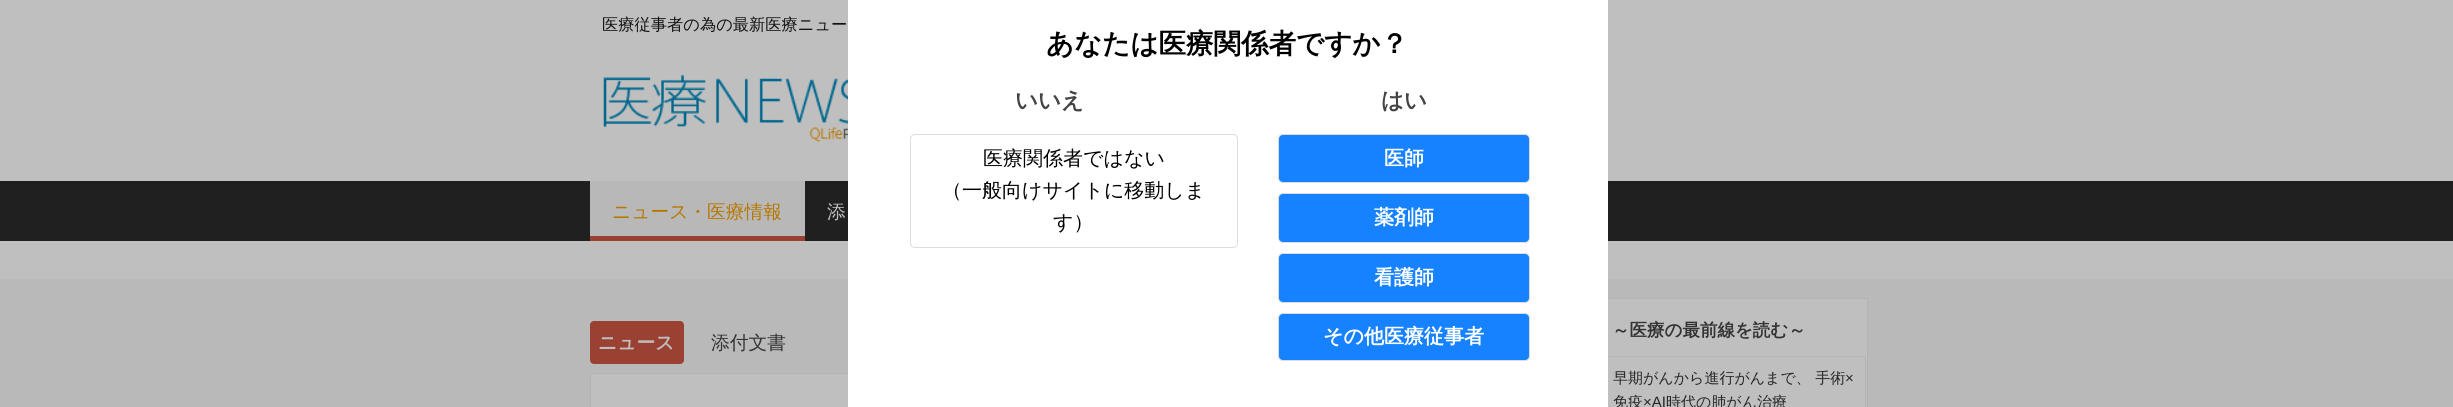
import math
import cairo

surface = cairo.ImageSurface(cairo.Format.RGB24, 2453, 407)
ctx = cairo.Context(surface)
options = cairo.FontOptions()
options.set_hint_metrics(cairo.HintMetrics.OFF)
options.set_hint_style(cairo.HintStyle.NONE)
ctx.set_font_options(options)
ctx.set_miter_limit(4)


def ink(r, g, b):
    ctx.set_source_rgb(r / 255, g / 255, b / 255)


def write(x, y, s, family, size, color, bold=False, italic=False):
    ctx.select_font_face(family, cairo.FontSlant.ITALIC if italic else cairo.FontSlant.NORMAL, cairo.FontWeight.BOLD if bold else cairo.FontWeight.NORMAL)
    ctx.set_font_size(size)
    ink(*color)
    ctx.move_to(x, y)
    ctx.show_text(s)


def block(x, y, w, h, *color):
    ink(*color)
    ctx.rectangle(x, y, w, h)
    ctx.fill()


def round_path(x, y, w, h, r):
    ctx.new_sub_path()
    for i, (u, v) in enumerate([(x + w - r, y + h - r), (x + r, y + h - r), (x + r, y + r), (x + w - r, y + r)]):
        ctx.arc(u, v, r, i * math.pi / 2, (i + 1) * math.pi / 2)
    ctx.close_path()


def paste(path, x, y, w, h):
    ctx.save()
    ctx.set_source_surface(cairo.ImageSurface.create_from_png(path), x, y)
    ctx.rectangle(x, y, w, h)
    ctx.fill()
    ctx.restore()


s1 = dict(family="WenQuanYi Zen Hei Medium", size=16.25, color=(18, 18, 18))
s2 = dict(family="WenQuanYi Zen Hei Medium", size=18.75, color=(183, 119, 0))
s3 = dict(family="WenQuanYi Zen Hei Medium", size=18.75, color=(191, 191, 191))
s4 = dict(family="WenQuanYi Zen Hei", size=27.5, color=(0, 0, 0), bold=True)
s5 = dict(family="WenQuanYi Zen Hei", size=22.5, color=(68, 68, 68), bold=True)
s6 = dict(family="WenQuanYi Zen Hei Medium", size=20, color=(0, 0, 0))
s7 = dict(family="WenQuanYi Zen Hei", size=20, color=(255, 255, 255), bold=True)
s8 = dict(family="WenQuanYi Zen Hei", size=18.75, color=(191, 191, 191), bold=True)
s9 = dict(family="WenQuanYi Zen Hei Medium", size=18.75, color=(51, 51, 51))
s10 = dict(family="WenQuanYi Zen Hei", size=17.5, color=(51, 51, 51), bold=True)
s11 = dict(family="WenQuanYi Zen Hei Medium", size=15, color=(38, 38, 38))
s12 = dict(family="Liberation Sans", size=15, color=(38, 38, 38))

ink(191, 191, 191)
ctx.paint()
write(602, 30, "医療従事者の為の最新医療ニュー", **s1)
paste("pic1.png", 603, 74, 245, 68)
block(0, 181, 2453, 60, 32, 32, 32)
block(590, 181, 215, 55, 184, 184, 184)
block(590, 236, 215, 5, 154, 65, 50)
write(612, 218, "ニュース・医療情報", **s2)
write(827, 218, "添", **s3)
block(0, 279, 2453, 128, 185, 185, 185)
ink(191, 191, 191)
round_path(590.5, 373.5, 707, 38, 3.5)
ctx.fill_preserve()
ink(179, 179, 179)
ctx.set_line_width(1)
ctx.stroke()
block(1608, 299, 259, 108, 191, 191, 191)
ctx.rectangle(1490.5, 298.5, 377, 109)
ink(179, 179, 179)
ctx.stroke()
ctx.rectangle(1491.5, 356.5, 374, 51)
ctx.stroke()
block(848, 0, 760, 407, 255, 255, 255)
write(1046, 53, "あなたは医療関係者ですか？", **s4)
write(1015, 108, "いいえ", **s5)
write(1381, 108, "はい", **s5)
round_path(910.5, 134.5, 327, 113, 4.5)
ink(221, 221, 221)
ctx.stroke()
write(983, 165, "医療関係者ではない", **s6)
write(942, 197, "（一般向けサイトに移動しま", **s6)
write(1053, 229, "す）", **s6)
ink(23, 130, 255)
round_path(1278.5, 134.5, 251, 48, 4.5)
ctx.fill_preserve()
ink(221, 221, 221)
ctx.stroke()
write(1384, 165, "医師", **s7)
ink(23, 130, 255)
round_path(1278.5, 193.5, 251, 49, 4.5)
ctx.fill_preserve()
ink(221, 221, 221)
ctx.stroke()
write(1374, 224, "薬剤師", **s7)
ink(23, 130, 255)
round_path(1278.5, 253.5, 251, 49, 4.5)
ctx.fill_preserve()
ink(221, 221, 221)
ctx.stroke()
write(1374, 284, "看護師", **s7)
ink(23, 130, 255)
round_path(1278.5, 313.5, 251, 47, 4.5)
ctx.fill_preserve()
ink(221, 221, 221)
ctx.stroke()
write(1323, 343, "その他医療従事者", **s7)
ink(154, 65, 50)
round_path(590, 321, 94, 43, 4)
ctx.fill()
write(598, 349, "ニュース", **s8)
write(711, 349, "添付文書", **s9)
write(1612, 336, "～医療の最前線を読む～", **s10)
write(1613, 383, "早期がんから進行がんまで、 手術", **s11)
write(1845, 383, "×", **s12)
write(1613, 407, "免疫", **s11)
write(1643, 407, "×AI", **s12)
write(1666, 407, "時代の肺がん治療", **s11)
surface.write_to_png("screenshot.png")
